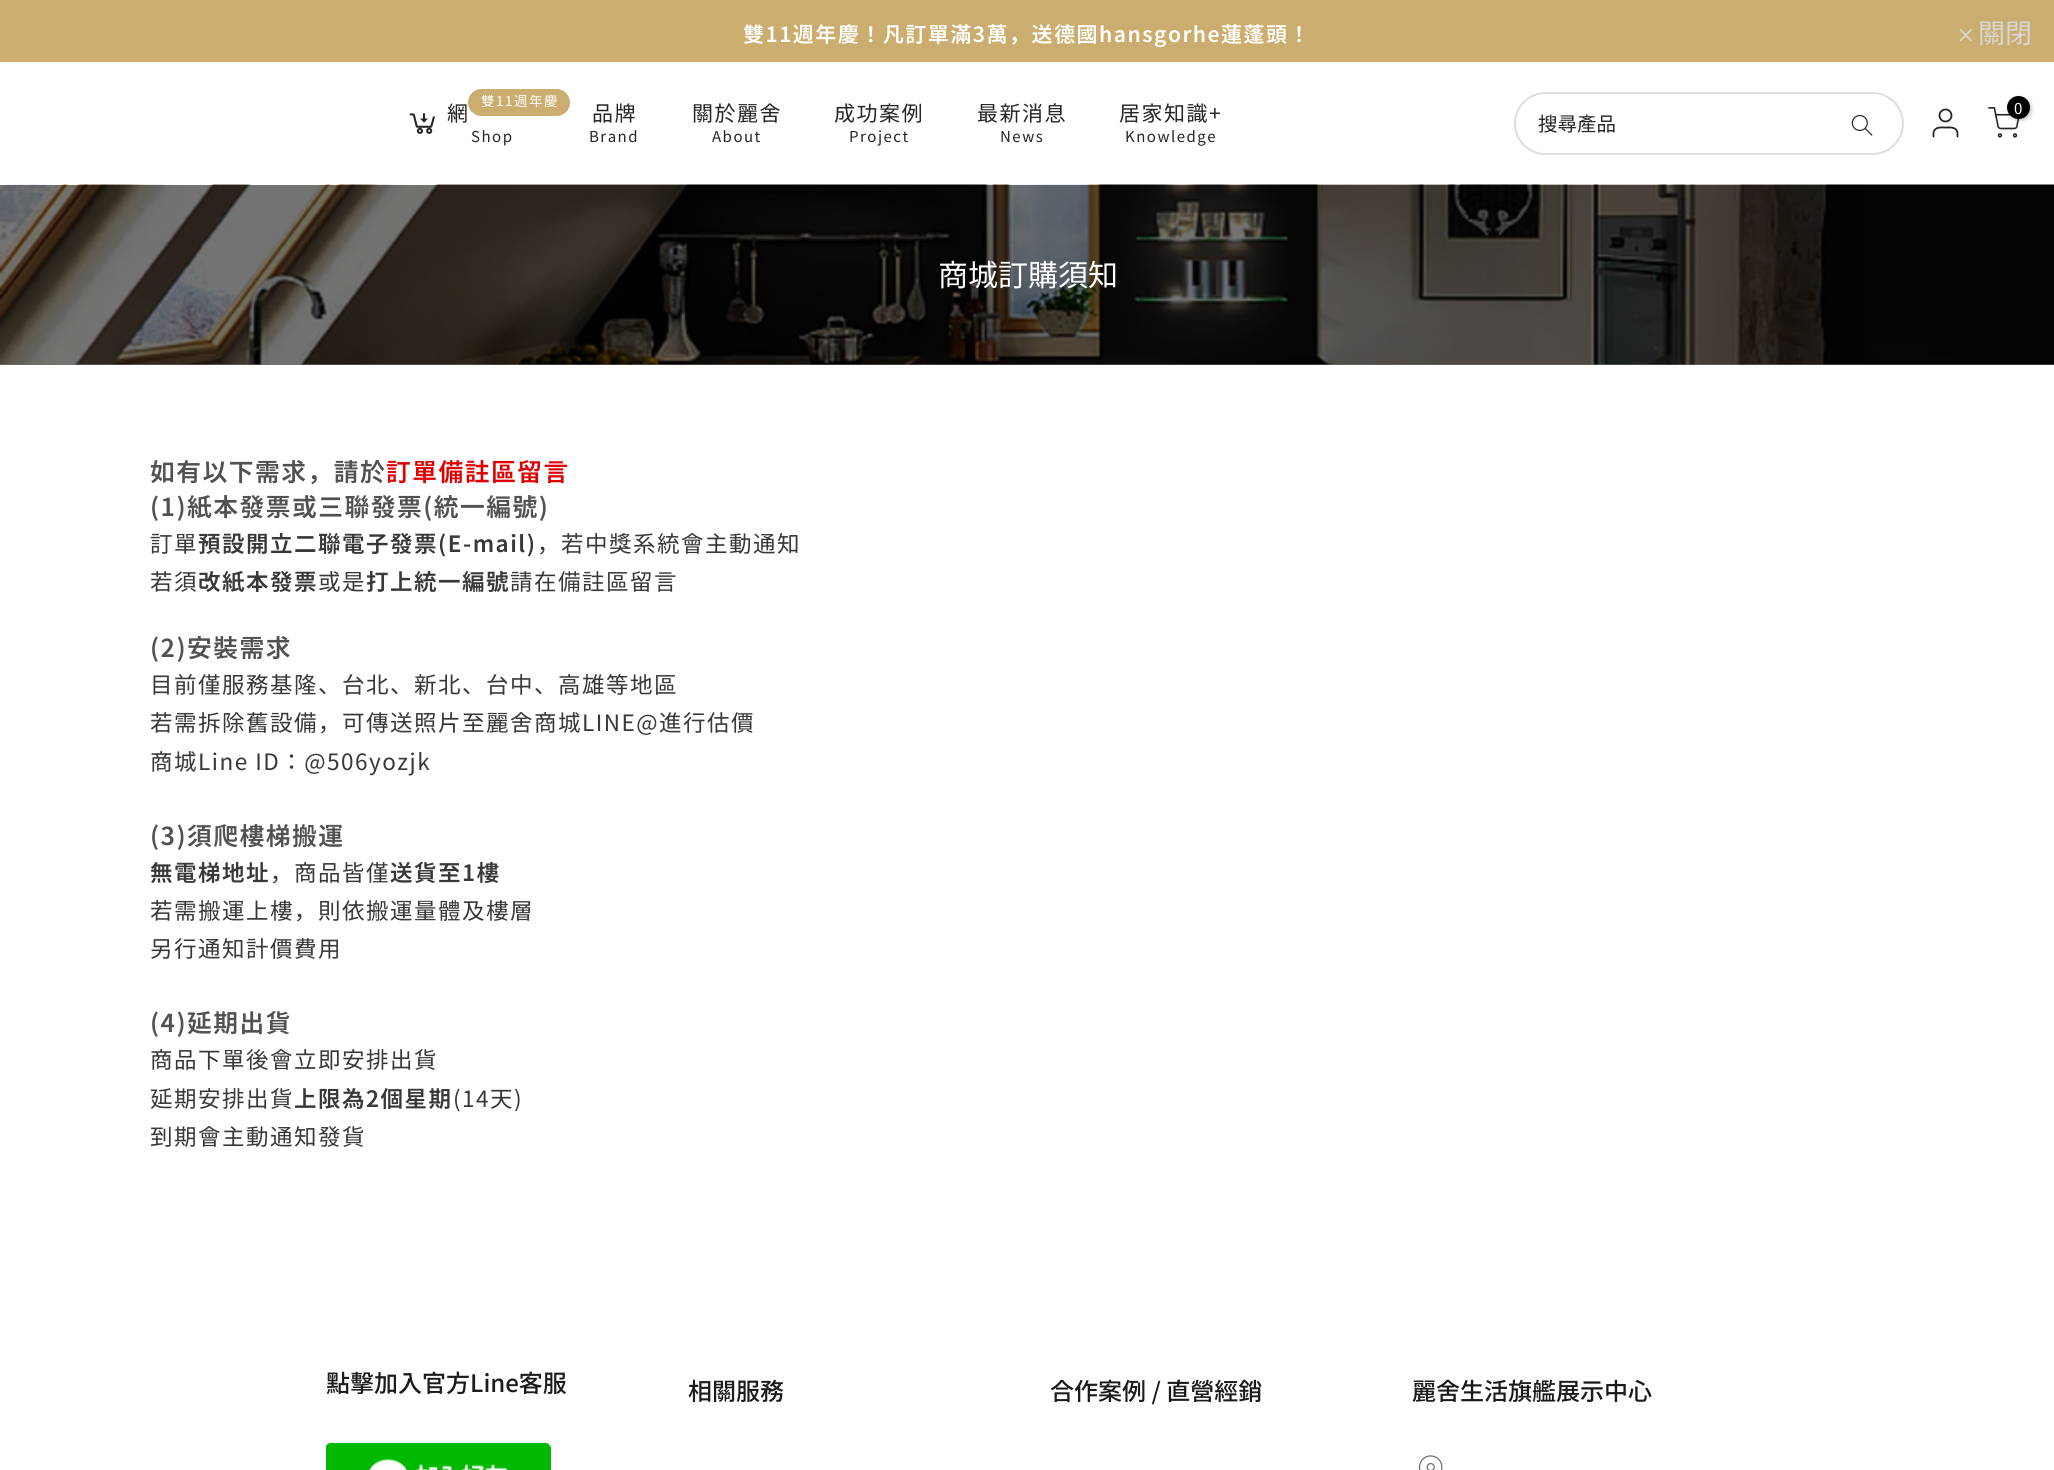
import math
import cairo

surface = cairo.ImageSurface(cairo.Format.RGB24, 2054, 1470)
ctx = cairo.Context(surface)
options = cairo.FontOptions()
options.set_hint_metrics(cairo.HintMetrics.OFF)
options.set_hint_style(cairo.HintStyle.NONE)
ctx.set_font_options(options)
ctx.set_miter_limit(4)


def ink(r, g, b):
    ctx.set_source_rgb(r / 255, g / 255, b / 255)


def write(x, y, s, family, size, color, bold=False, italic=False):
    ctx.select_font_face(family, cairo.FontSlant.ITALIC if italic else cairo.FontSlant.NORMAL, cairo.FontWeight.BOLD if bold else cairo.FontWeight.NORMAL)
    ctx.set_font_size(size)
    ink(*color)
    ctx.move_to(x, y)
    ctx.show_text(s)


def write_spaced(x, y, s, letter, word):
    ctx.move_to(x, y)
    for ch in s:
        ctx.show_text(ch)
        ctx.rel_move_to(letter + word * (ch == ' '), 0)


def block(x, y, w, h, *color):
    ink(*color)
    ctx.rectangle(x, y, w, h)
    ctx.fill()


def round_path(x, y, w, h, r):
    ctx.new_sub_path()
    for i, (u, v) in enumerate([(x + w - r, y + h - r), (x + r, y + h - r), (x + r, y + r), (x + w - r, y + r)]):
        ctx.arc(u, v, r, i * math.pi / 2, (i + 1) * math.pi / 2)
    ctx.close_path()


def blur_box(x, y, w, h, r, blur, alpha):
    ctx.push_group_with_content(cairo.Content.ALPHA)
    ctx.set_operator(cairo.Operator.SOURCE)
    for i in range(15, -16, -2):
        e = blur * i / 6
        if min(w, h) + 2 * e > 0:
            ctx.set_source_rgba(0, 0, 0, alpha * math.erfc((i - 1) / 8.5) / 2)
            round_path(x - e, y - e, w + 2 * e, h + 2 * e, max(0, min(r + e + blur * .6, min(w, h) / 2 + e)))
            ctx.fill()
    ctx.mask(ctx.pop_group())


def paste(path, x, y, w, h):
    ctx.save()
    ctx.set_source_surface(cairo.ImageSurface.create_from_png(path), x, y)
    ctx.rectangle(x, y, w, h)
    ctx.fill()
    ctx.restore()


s1 = dict(family="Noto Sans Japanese", size=27, color=(217, 214, 214))
s2 = dict(family="Noto Sans Japanese", size=19.5, color=(37, 37, 37))
s3 = dict(family="Noto Sans Japanese", size=15, color=(255, 255, 255))
s4 = dict(family="Noto Sans Japanese", size=30, color=(255, 255, 255))
s5 = dict(family="Noto Sans Japanese Medium", size=24, color=(28, 26, 26))

ink(255, 255, 255)
ctx.paint()
block(0, 364, 2054, 1, 117, 117, 117)
block(0, 0, 2054, 62, 203, 173, 111)
ctx.select_font_face("Noto Sans Japanese SemiBold")
ctx.set_font_size(21)
ink(255, 255, 255)
write_spaced(743, 42, "雙11週年慶！凡訂單滿3萬，送德國hansgorhe蓮蓬頭！", 1.5, 0)
ctx.new_path()
ctx.move_to(1971.5, 29.5)
ctx.line_to(1960, 41)
ctx.move_to(1971.5, 41)
ctx.line_to(1960, 29.5)
ink(217, 214, 214)
ctx.set_line_width(1.7)
ctx.stroke()
write(1978, 43, "關閉", **s1)
ink(203, 173, 111)
round_path(468, 89, 102, 27, 13.5)
ctx.fill()
ctx.set_font_size(13.5)
ink(255, 255, 255)
write_spaced(481, 106, "雙11週年慶", 1.5, 0)
paste("pic1.png", 409, 113, 27, 21)
ctx.set_font_size(21)
ink(37, 37, 37)
write_spaced(447, 121, "網", 1.5, 0)
ctx.set_font_size(15)
write_spaced(471, 142, "Shop", 1.5, 0)
ctx.set_font_size(21)
write_spaced(592, 121, "品牌", 1.5, 0)
ctx.set_font_size(15)
write_spaced(589, 142, "Brand", 1.5, 0)
ctx.set_font_size(21)
write_spaced(692, 121, "關於麗舍", 1.5, 0)
ctx.set_font_size(15)
write_spaced(712, 142, "About", 1.5, 0)
ctx.set_font_size(21)
write_spaced(834, 121, "成功案例", 1.5, 0)
ctx.set_font_size(15)
write_spaced(849, 142, "Project", 1.5, 0)
ctx.set_font_size(21)
write_spaced(977, 121, "最新消息", 1.5, 0)
ctx.set_font_size(15)
write_spaced(1000, 142, "News", 1.5, 0)
ctx.set_font_size(21)
write_spaced(1119, 121, "居家知識+", 1.5, 0)
ctx.set_font_size(15)
write_spaced(1125, 142, "Knowledge", 1.5, 0)
round_path(1515, 93, 388, 61, 30.5)
ink(222, 222, 222)
ctx.set_line_width(2)
ctx.stroke()
write(1538, 131, "搜尋產品", **s2)
paste("pic2.png", 1851, 115, 22, 21)
ctx.arc(1945.5, 115.5, 6, 0, 2 * math.pi)
ctx.set_line_width(1.8)
ctx.stroke()
ctx.new_path()
ctx.move_to(1957.5, 136.5)
ctx.line_to(1957.5, 132.5)
ctx.curve_to(1956, 126.5, 1950, 127.5, 1945.5, 127.5)
ctx.curve_to(1941, 127.5, 1935, 126.5, 1933.5, 132.5)
ctx.line_to(1933.5, 136.5)
ctx.set_line_cap(cairo.LineCap.ROUND)
ctx.set_line_join(cairo.LineJoin.ROUND)
ctx.stroke()
paste("pic3.png", 1988, 107, 32, 31)
ink(0, 0, 0)
blur_box(2009, 98, 22, 22, 11, 2, 0.3)
ink(0, 0, 0)
ctx.arc(2018.5, 107.5, 11.5, 0, 2 * math.pi)
ctx.fill()
write(2014, 114, "0", **s3)
paste("pic4.png", 0, 184, 2054, 181)
write(938, 286, "商城訂購須知", **s4)
ctx.select_font_face("Noto Sans Japanese SemiBold")
ctx.set_font_size(24.75)
ink(81, 81, 81)
write_spaced(150, 481, "如有以下需求，請於", 1.5, 0)
ink(222, 1, 1)
write_spaced(386, 481, "訂單備註區留言", 1.5, 0)
ink(81, 81, 81)
write_spaced(150, 516, "(1)紙本發票或三聯發票(統一編號)", 1.5, 0)
ctx.select_font_face("Noto Sans Japanese")
ctx.set_font_size(22.5)
ink(57, 56, 56)
write_spaced(150, 552, "訂單", 1.5, 0)
ctx.select_font_face("Noto Sans Japanese SemiBold")
write_spaced(198, 552, "預設開立二聯電子發票(E-mail)", 1.5, 0)
ctx.select_font_face("Noto Sans Japanese")
write_spaced(537, 552, "，若中獎系統會主動通知", 1.5, 0)
write_spaced(150, 590, "若須", 1.5, 0)
ctx.select_font_face("Noto Sans Japanese SemiBold")
write_spaced(198, 590, "改紙本發票", 1.5, 0)
ctx.select_font_face("Noto Sans Japanese")
write_spaced(318, 590, "或是", 1.5, 0)
ctx.select_font_face("Noto Sans Japanese SemiBold")
write_spaced(366, 590, "打上統一編號", 1.5, 0)
ctx.select_font_face("Noto Sans Japanese")
write_spaced(510, 590, "請在備註區留言", 1.5, 0)
ctx.select_font_face("Noto Sans Japanese SemiBold")
ctx.set_font_size(24.75)
ink(81, 81, 81)
write_spaced(150, 657, "(2)安裝需求", 1.5, 0)
ctx.select_font_face("Noto Sans Japanese")
ctx.set_font_size(22.5)
ink(57, 56, 56)
write_spaced(150, 693, "目前僅服務基隆、台北、新北、台中、高雄等地區", 1.5, 0)
write_spaced(150, 731, "若需拆除舊設備，可傳送照片至麗舍商城LINE@進行估價", 1.5, 0)
write_spaced(150, 770, "商城Line ID：@506yozjk", 1.5, 0)
ctx.select_font_face("Noto Sans Japanese SemiBold")
ctx.set_font_size(24.75)
ink(81, 81, 81)
write_spaced(150, 845, "(3)須爬樓梯搬運", 1.5, 0)
ctx.set_font_size(22.5)
ink(57, 56, 56)
write_spaced(150, 881, "無電梯地址", 1.5, 0)
ctx.select_font_face("Noto Sans Japanese")
write_spaced(270, 881, "，商品皆僅", 1.5, 0)
ctx.select_font_face("Noto Sans Japanese SemiBold")
write_spaced(390, 881, "送貨至1樓", 1.5, 0)
ctx.select_font_face("Noto Sans Japanese")
write_spaced(150, 919, "若需搬運上樓，則依搬運量體及樓層", 1.5, 0)
write_spaced(150, 957, "另行通知計價費用", 1.5, 0)
ctx.select_font_face("Noto Sans Japanese SemiBold")
ctx.set_font_size(24.75)
ink(81, 81, 81)
write_spaced(150, 1032, "(4)延期出貨", 1.5, 0)
ctx.select_font_face("Noto Sans Japanese")
ctx.set_font_size(22.5)
ink(57, 56, 56)
write_spaced(150, 1068, "商品下單後會立即安排出貨", 1.5, 0)
write_spaced(150, 1107, "延期安排出貨", 1.5, 0)
ctx.select_font_face("Noto Sans Japanese SemiBold")
write_spaced(294, 1107, "上限為2個星期", 1.5, 0)
ctx.select_font_face("Noto Sans Japanese")
write_spaced(453, 1107, "(14天)", 1.5, 0)
write_spaced(150, 1145, "到期會主動通知發貨", 1.5, 0)
write(326, 1392, "點擊加入官方Line客服", **s5)
paste("pic5.png", 326, 1443, 225, 27)
write(688, 1400, "相關服務", **s5)
write(1050, 1400, "合作案例 / 直營經銷", **s5)
write(1412, 1400, "麗舍生活旗艦展示中心", **s5)
paste("pic6.png", 1418, 1455, 25, 15)
surface.write_to_png("screenshot.png")
